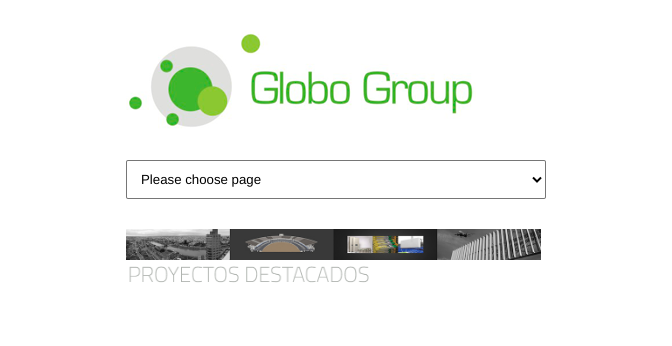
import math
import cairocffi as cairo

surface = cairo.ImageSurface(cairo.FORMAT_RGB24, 672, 346)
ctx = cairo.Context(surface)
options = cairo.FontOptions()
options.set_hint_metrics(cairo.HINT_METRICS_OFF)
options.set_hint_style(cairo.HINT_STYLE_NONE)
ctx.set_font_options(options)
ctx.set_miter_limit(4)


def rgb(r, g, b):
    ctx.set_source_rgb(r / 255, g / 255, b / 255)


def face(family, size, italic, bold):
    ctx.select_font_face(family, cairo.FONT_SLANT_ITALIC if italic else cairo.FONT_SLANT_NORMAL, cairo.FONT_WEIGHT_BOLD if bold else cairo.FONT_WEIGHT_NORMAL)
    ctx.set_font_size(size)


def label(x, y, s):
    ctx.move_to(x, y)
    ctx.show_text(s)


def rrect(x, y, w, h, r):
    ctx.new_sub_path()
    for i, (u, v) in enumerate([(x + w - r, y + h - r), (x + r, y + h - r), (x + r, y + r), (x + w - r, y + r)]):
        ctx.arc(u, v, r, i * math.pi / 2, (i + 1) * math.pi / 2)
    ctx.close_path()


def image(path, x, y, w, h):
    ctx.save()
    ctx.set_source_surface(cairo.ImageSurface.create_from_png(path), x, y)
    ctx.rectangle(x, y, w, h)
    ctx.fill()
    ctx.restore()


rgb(255, 255, 255)
ctx.paint()
image('image0.png', 126, 30, 350, 99)
rrect(126.5, 160.5, 419, 38, 1.5)
rgb(118, 118, 118)
ctx.set_line_width(1)
ctx.stroke()
ctx.new_path()
ctx.move_to(533, 177.5)
ctx.line_to(537, 181.5)
ctx.line_to(541, 177.5)
rgb(0, 0, 0)
ctx.set_line_width(2)
ctx.stroke()
face('Liberation Sans', 13.25, 0, 0)
label(141, 184, 'Please choose page')
image('image1.png', 126, 229, 415, 31)
image('image2.png', 129, 266, 240, 17)
surface.write_to_png('render.png')
